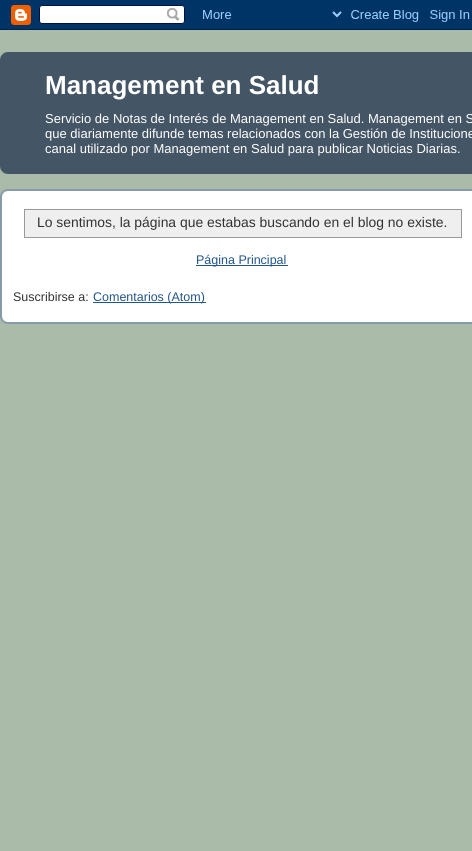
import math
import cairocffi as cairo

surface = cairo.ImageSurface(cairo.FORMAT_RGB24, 472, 851)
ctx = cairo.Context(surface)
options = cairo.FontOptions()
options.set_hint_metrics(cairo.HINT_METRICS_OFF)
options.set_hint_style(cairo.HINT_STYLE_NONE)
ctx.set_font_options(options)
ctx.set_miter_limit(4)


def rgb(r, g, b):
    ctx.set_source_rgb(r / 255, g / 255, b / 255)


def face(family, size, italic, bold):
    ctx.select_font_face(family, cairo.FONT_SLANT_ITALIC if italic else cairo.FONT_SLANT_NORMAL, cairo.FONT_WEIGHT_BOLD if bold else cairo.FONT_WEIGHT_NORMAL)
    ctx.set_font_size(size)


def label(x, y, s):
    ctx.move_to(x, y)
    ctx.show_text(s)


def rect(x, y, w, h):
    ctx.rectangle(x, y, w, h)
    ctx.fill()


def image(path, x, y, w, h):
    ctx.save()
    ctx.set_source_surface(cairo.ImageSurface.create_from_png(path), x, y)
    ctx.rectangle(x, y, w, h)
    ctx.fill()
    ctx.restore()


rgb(170, 187, 170)
ctx.paint()
image('image0.png', 0, 0, 472, 30)
rgb(68, 85, 102)
rect(0, 52, 472, 122)
image('image1.png', 0, 52, 8, 8)
image('image2.png', 0, 166, 8, 8)
face('Liberation Sans', 26, 0, 1)
rgb(255, 255, 255)
label(45, 94, 'Management en Salud')
face('Liberation Sans', 13, 0, 0)
label(45, 123, 'Servicio de Notas de Interés de Management en Salud. Management en S')
label(45, 138, 'que diariamente difunde temas relacionados con la Gestión de Institucione')
label(45, 153, 'canal utilizado por Management en Salud para publicar Noticias Diarias.')
rect(2, 191, 470, 131)
image('image3.png', 0, 274, 472, 50)
image('image4.png', 0, 189, 472, 50)
rgb(136, 153, 170)
rect(0, 239, 2, 35)
ctx.rectangle(24.5, 209.5, 437, 28)
rgb(153, 153, 153)
ctx.set_line_width(1)
ctx.stroke()
rgb(239, 239, 239)
rect(25, 210, 436, 27)
face('Liberation Sans', 13.9, 0, 0)
rgb(51, 51, 51)
label(37, 227, 'Lo sentimos, la página que estabas buscando en el blog no existe.')
rgb(34, 85, 136)
rect(196, 265, 92, 1)
face('Liberation Sans', 12.5, 0, 0)
label(196, 264, 'Página Principal')
rgb(51, 51, 51)
label(13, 301, 'Suscribirse a:')
rgb(34, 85, 136)
rect(93, 302, 113, 1)
label(93, 301, 'Comentarios (Atom)')
surface.write_to_png('render.png')
